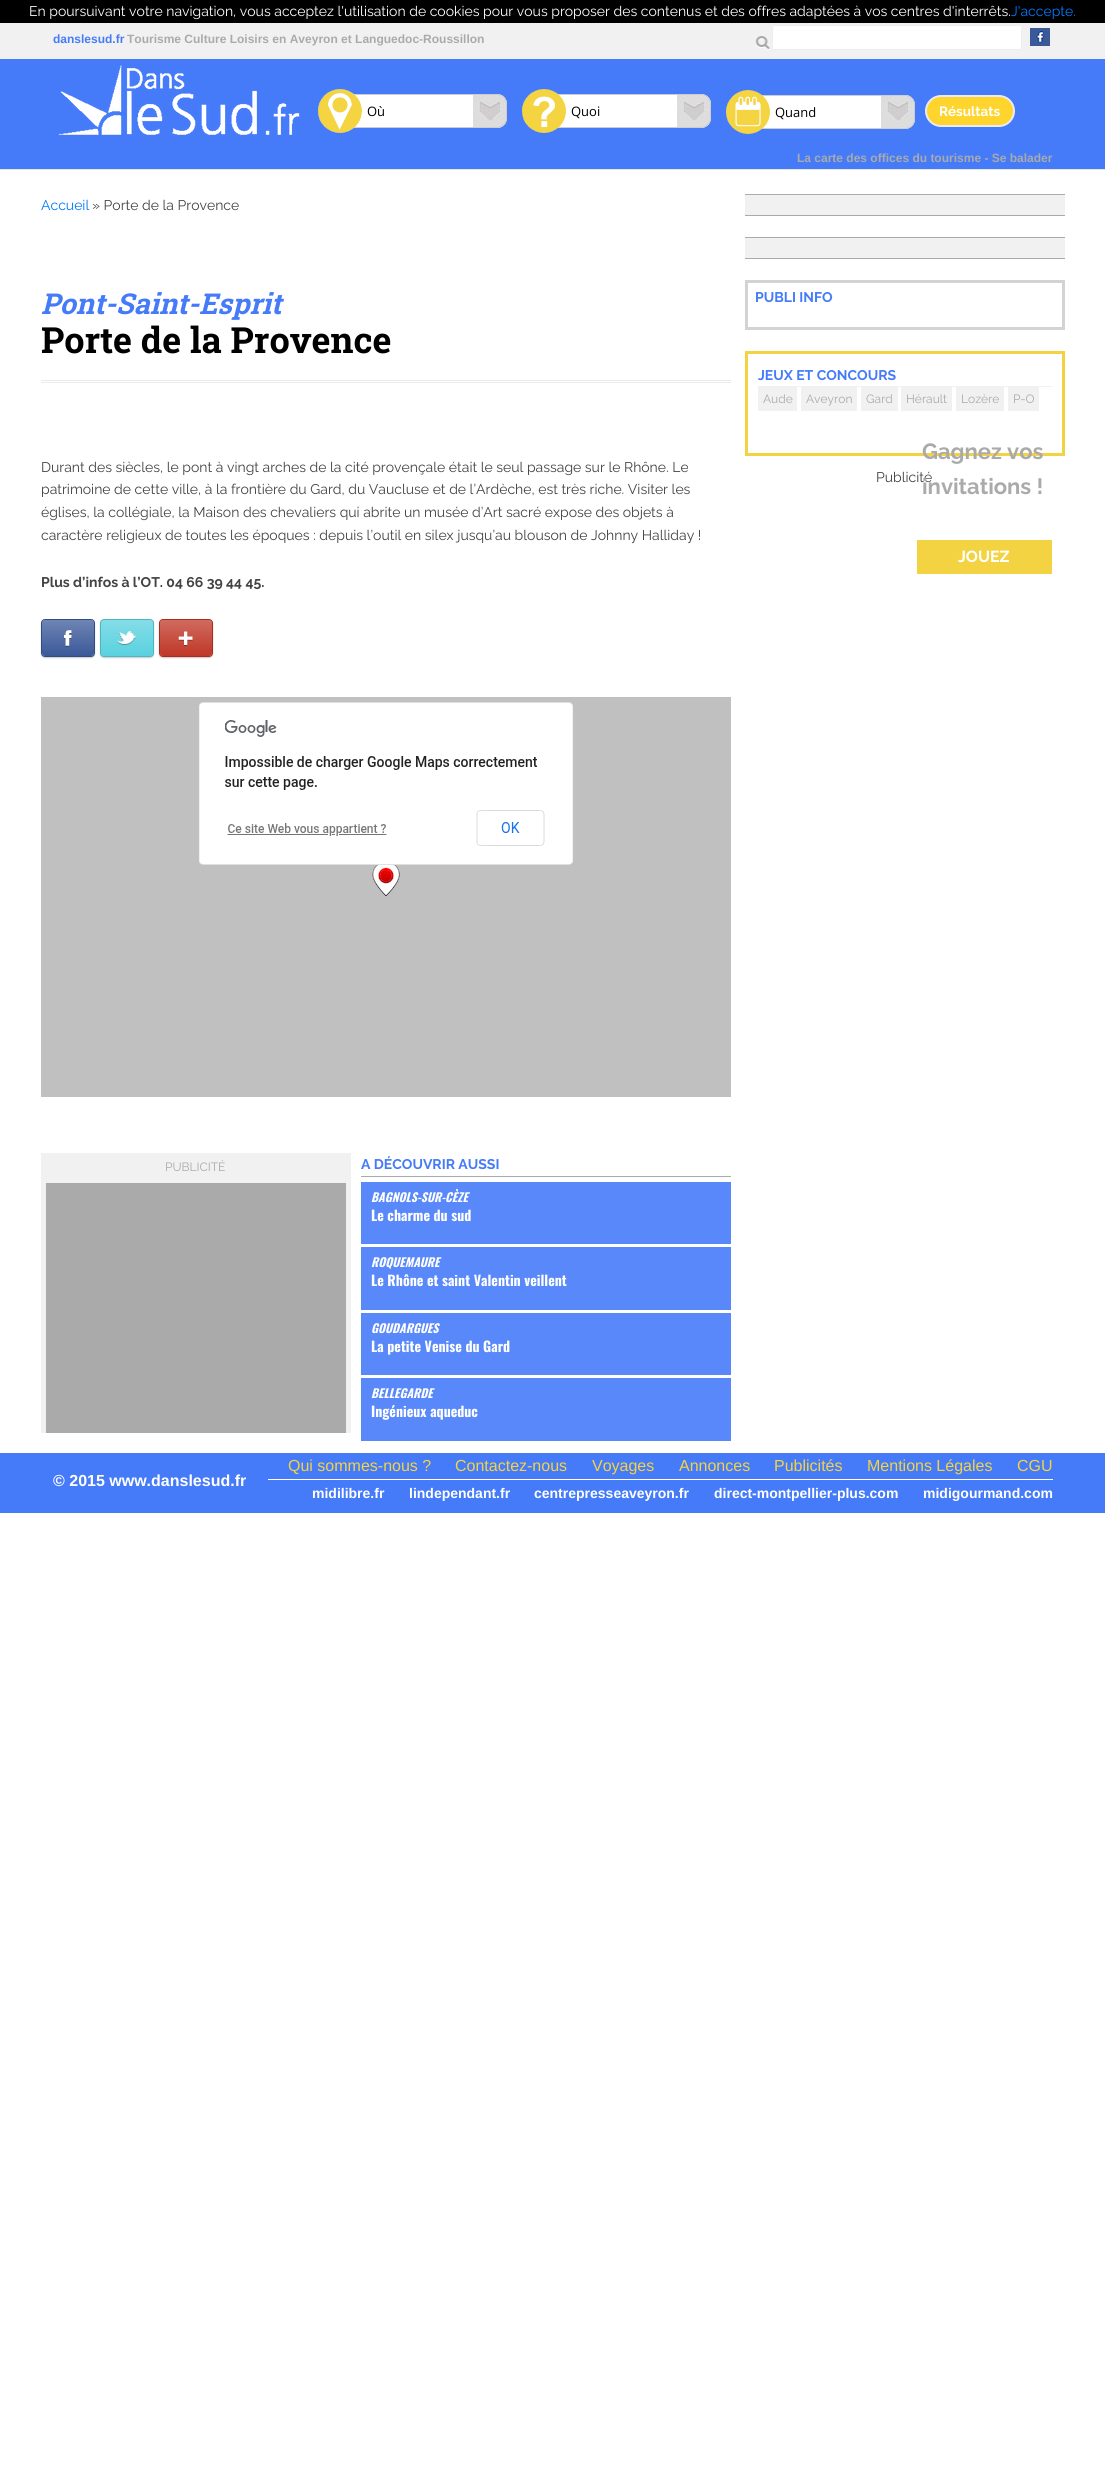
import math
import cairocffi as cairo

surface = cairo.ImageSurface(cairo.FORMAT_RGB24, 1105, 2479)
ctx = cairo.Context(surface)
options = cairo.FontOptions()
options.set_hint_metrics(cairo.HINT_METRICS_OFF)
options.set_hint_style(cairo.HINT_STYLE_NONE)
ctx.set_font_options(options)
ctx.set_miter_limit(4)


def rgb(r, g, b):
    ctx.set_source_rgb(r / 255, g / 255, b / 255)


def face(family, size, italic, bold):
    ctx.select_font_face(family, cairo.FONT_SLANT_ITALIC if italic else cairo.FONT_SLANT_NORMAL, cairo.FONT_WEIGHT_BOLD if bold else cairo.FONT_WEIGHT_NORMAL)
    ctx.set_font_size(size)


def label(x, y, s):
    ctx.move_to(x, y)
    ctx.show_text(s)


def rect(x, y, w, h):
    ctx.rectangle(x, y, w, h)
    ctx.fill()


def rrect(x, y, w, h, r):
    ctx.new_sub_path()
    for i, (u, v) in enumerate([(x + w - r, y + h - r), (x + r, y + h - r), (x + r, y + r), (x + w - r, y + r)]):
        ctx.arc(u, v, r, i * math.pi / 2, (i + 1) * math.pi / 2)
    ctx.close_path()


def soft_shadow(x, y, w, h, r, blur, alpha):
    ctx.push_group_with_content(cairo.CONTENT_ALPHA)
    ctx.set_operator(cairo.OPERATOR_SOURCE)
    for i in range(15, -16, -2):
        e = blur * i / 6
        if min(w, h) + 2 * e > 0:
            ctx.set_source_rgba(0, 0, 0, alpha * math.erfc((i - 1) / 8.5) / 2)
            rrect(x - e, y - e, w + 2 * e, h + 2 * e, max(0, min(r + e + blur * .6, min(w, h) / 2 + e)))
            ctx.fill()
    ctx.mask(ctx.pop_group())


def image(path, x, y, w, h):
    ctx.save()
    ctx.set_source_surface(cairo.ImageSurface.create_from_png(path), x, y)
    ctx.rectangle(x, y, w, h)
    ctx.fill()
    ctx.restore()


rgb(255, 255, 255)
ctx.paint()
rgb(0, 0, 0)
rect(0, 0, 1105, 23)
face('Raleway', 14, 0, 0)
rgb(255, 255, 255)
label(29, 16, 'En poursuivant votre navigation, vous acceptez l\'utilisation de cookies pour vous proposer des contenus et des offres adaptées à vos centres d\'interrêts.')
rgb(0, 121, 251)
label(1011, 16, 'J\'accepte.')
rgb(241, 241, 241)
rect(0, 23, 1105, 36)
rgb(228, 228, 228)
rect(0, 169, 1105, 1)
face('Liberation Sans', 12, 0, 1)
rgb(69, 123, 249)
label(53, 43, 'danslesud.fr')
rgb(170, 170, 170)
label(127, 43, 'Tourisme Culture Loisirs en Aveyron et Languedoc-Roussillon')
image('image0.png', 755, 36, 15, 14)
rgb(255, 255, 255)
rrect(772.5, 25.5, 249, 24, 1.5)
ctx.fill_preserve()
rgb(238, 238, 238)
ctx.set_line_width(1)
ctx.stroke()
image('image1.png', 1030, 28, 20, 18)
rgb(69, 123, 249)
rect(0, 59, 1105, 110)
image('image2.png', 58, 65, 242, 71)
rgb(255, 255, 255)
rrect(347, 94, 160, 34, 10)
ctx.fill()
image('image4.png', 473, 95, 33, 33)
rrect(347.5, 94.5, 159, 33, 9.5)
rgb(204, 204, 204)
ctx.stroke()
image('image3.png', 318, 89, 44, 44)
face('Open Sans', 13, 0, 0)
rgb(0, 0, 0)
label(367, 116, 'Où')
rgb(255, 255, 255)
rrect(551, 94, 160, 34, 10)
ctx.fill()
image('image4.png', 677, 95, 33, 33)
rrect(551.5, 94.5, 159, 33, 9.5)
rgb(204, 204, 204)
ctx.stroke()
image('image5.png', 522, 89, 44, 44)
rgb(0, 0, 0)
label(571, 116, 'Quoi')
rgb(255, 255, 255)
rrect(755, 95, 160, 34, 10)
ctx.fill()
image('image7.png', 881, 95, 33, 33)
rrect(755.5, 95.5, 159, 33, 9.5)
rgb(204, 204, 204)
ctx.stroke()
image('image6.png', 726, 90, 44, 44)
rgb(0, 0, 0)
label(775, 117, 'Quand')
rgb(255, 212, 44)
rrect(926, 96, 88, 30, 15)
ctx.fill_preserve()
rgb(235, 235, 235)
ctx.set_line_width(2)
ctx.stroke()
face('Raleway', 13.5, 0, 1)
rgb(255, 255, 255)
label(939, 116, 'Résultats')
face('Liberation Sans', 12, 0, 1)
rgb(170, 170, 170)
label(797, 162, 'La carte des offices du tourisme - Se balader')
face('Raleway', 14, 0, 0)
rgb(0, 121, 251)
label(41, 210, 'Accueil')
rgb(65, 67, 69)
label(92, 210, '» Porte de la Provence')
face('Roboto Slab', 28.75, 1, 1)
rgb(69, 123, 249)
label(41, 314, 'Pont-Saint-Esprit')
face('Roboto Slab', 36, 0, 1)
rgb(0, 0, 0)
label(41, 353, 'Porte de la Provence')
rgb(235, 235, 235)
rect(41, 380, 690, 1)
rect(41, 382, 690, 1)
face('Raleway', 14, 0, 0)
rgb(65, 67, 69)
label(41, 472, 'Durant des siècles, le pont à vingt arches de la cité provençale était le seul passage sur le Rhône. Le')
label(41, 494, 'patrimoine de cette ville, à la frontière du Gard, du Vaucluse et de l’Ardèche, est très riche. Visiter les')
label(41, 517, 'églises, la collégiale, la Maison des chevaliers qui abrite un musée d’Art sacré expose des objets à')
label(41, 540, 'caractère religieux de toutes les époques : depuis l’outil en silex jusqu’au blouson de Johnny Halliday !')
face('Raleway', 14, 0, 1)
label(41, 587, 'Plus d’infos à l’OT. 04 66 39 44 45.')
rgb(0, 0, 0)
soft_shadow(41, 620, 54, 38, 4, 0.5, 0.19)
rgb(59, 89, 153)
rrect(42, 620, 52, 36, 3)
ctx.fill()
gradient = cairo.LinearGradient(68, 656, 68, 620)
gradient.add_color_stop_rgba(0, 1, 1, 1, 0)
gradient.add_color_stop_rgba(1, 1, 1, 1, 0.26)
ctx.set_source(gradient)
rrect(42, 620, 52, 36, 3)
ctx.fill()
rrect(41.5, 619.5, 53, 37, 3.5)
rgb(49, 75, 131)
ctx.set_line_width(1)
ctx.stroke()
image('image8.png', 64, 630, 8, 17)
rgb(0, 0, 0)
soft_shadow(100, 620, 54, 38, 4, 0.5, 0.19)
rgb(89, 209, 223)
rrect(101, 620, 52, 36, 3)
ctx.fill()
gradient = cairo.LinearGradient(127, 656, 127, 620)
gradient.add_color_stop_rgba(0, 1, 1, 1, 0)
gradient.add_color_stop_rgba(1, 1, 1, 1, 0.26)
ctx.set_source(gradient)
rrect(101, 620, 52, 36, 3)
ctx.fill()
rrect(100.5, 619.5, 53, 37, 3.5)
rgb(79, 181, 193)
ctx.stroke()
image('image9.png', 117, 631, 19, 14)
rgb(0, 0, 0)
soft_shadow(159, 620, 54, 38, 4, 0.5, 0.19)
rgb(191, 55, 39)
rrect(160, 620, 52, 36, 3)
ctx.fill()
gradient = cairo.LinearGradient(186, 656, 186, 620)
gradient.add_color_stop_rgba(0, 1, 1, 1, 0)
gradient.add_color_stop_rgba(1, 1, 1, 1, 0.26)
ctx.set_source(gradient)
rrect(160, 620, 52, 36, 3)
ctx.fill()
rrect(159.5, 619.5, 53, 37, 3.5)
rgb(171, 43, 29)
ctx.stroke()
image('image10.png', 178, 631, 15, 15)
image('image11.png', 41, 697, 690, 400)
rgb(241, 241, 241)
rect(41, 1153, 310, 280)
face('Raleway', 12, 0, 0)
rgb(170, 170, 170)
label(165, 1171, 'PUBLICITÉ')
rect(46, 1183, 300, 250)
rect(361, 1176, 370, 1)
face('Raleway', 14, 0, 1)
rgb(69, 123, 249)
label(361, 1169, 'A DÉCOUVRIR AUSSI')
rgb(88, 136, 250)
rect(361, 1182, 370, 62)
face('Oswald', 12, 1, 1)
rgb(255, 255, 255)
label(371, 1202, 'BAGNOLS-SUR-CÈZE')
face('Oswald', 14, 0, 1)
label(371, 1221, 'Le charme du sud')
rgb(88, 136, 250)
rect(361, 1247, 370, 63)
face('Oswald', 12, 1, 1)
rgb(255, 255, 255)
label(371, 1267, 'ROQUEMAURE')
face('Oswald', 14, 0, 1)
label(371, 1286, 'Le Rhône et saint Valentin veillent')
rgb(88, 136, 250)
rect(361, 1313, 370, 62)
face('Oswald', 12, 1, 1)
rgb(255, 255, 255)
label(371, 1333, 'GOUDARGUES')
face('Oswald', 14, 0, 1)
label(371, 1352, 'La petite Venise du Gard')
rgb(88, 136, 250)
rect(361, 1378, 370, 63)
face('Oswald', 12, 1, 1)
rgb(255, 255, 255)
label(371, 1398, 'BELLEGARDE')
face('Oswald', 14, 0, 1)
label(371, 1417, 'Ingénieux aqueduc')
rgb(241, 241, 241)
rect(745, 195, 320, 20)
rgb(170, 170, 170)
rect(745, 194, 320, 1)
rect(745, 215, 320, 1)
rgb(241, 241, 241)
rect(745, 238, 320, 20)
rgb(170, 170, 170)
rect(745, 237, 320, 1)
rect(745, 258, 320, 1)
ctx.rectangle(746.5, 281.5, 317, 47)
rgb(211, 211, 211)
ctx.set_line_width(3)
ctx.stroke()
face('Raleway', 14, 0, 1)
rgb(69, 123, 249)
label(755, 302, 'PUBLI INFO')
ctx.rectangle(746.5, 352.5, 317, 102)
rgb(243, 211, 66)
ctx.stroke()
rgb(241, 241, 241)
rect(797, 386, 255, 1)
rgb(69, 123, 249)
label(758, 380, 'JEUX ET CONCOURS')
rgb(241, 241, 241)
rect(758, 386, 39, 25)
face('Raleway', 12, 0, 0)
rgb(170, 170, 170)
label(763, 403, 'Aude')
rgb(241, 241, 241)
rect(801, 387, 56, 24)
rgb(170, 170, 170)
label(806, 403, 'Aveyron')
rgb(241, 241, 241)
rect(861, 387, 37, 24)
rgb(170, 170, 170)
label(866, 403, 'Gard')
rgb(241, 241, 241)
rect(901, 387, 51, 24)
rgb(170, 170, 170)
label(906, 403, 'Hérault')
rgb(241, 241, 241)
rect(956, 387, 48, 24)
rgb(170, 170, 170)
label(961, 403, 'Lozère')
rgb(241, 241, 241)
rect(1008, 387, 31, 24)
rgb(170, 170, 170)
label(1013, 403, 'P-O')
face('Raleway', 22, 0, 1)
label(922, 459, 'Gagnez vos')
face('Raleway', 14, 0, 0)
rgb(65, 67, 69)
label(876, 482, 'Publicité')
face('Raleway', 22, 0, 1)
rgb(170, 170, 170)
label(922, 494, 'invitations !')
rgb(243, 211, 66)
rect(917, 540, 135, 34)
face('Raleway', 16, 0, 1)
rgb(255, 255, 255)
label(958, 562, 'JOUEZ')
rgb(69, 123, 249)
rect(0, 1453, 1105, 60)
rgb(255, 255, 255)
rect(268, 1479, 785, 1)
face('Liberation Sans', 16, 0, 0)
rgb(243, 211, 66)
label(288, 1471, 'Qui sommes-nous ?')
label(455, 1471, 'Contactez-nous')
label(592, 1471, 'Voyages')
label(679, 1471, 'Annonces')
label(774, 1471, 'Publicités')
label(867, 1471, 'Mentions Légales')
label(1017, 1471, 'CGU')
face('Liberation Sans', 16, 0, 1)
rgb(255, 255, 255)
label(53, 1486, '© 2015 www.danslesud.fr')
face('Liberation Sans', 14, 0, 1)
label(312, 1498, 'midilibre.fr')
label(409, 1498, 'lindependant.fr')
label(534, 1498, 'centrepresseaveyron.fr')
label(714, 1498, 'direct-montpellier-plus.com')
label(923, 1498, 'midigourmand.com')
surface.write_to_png('render.png')
